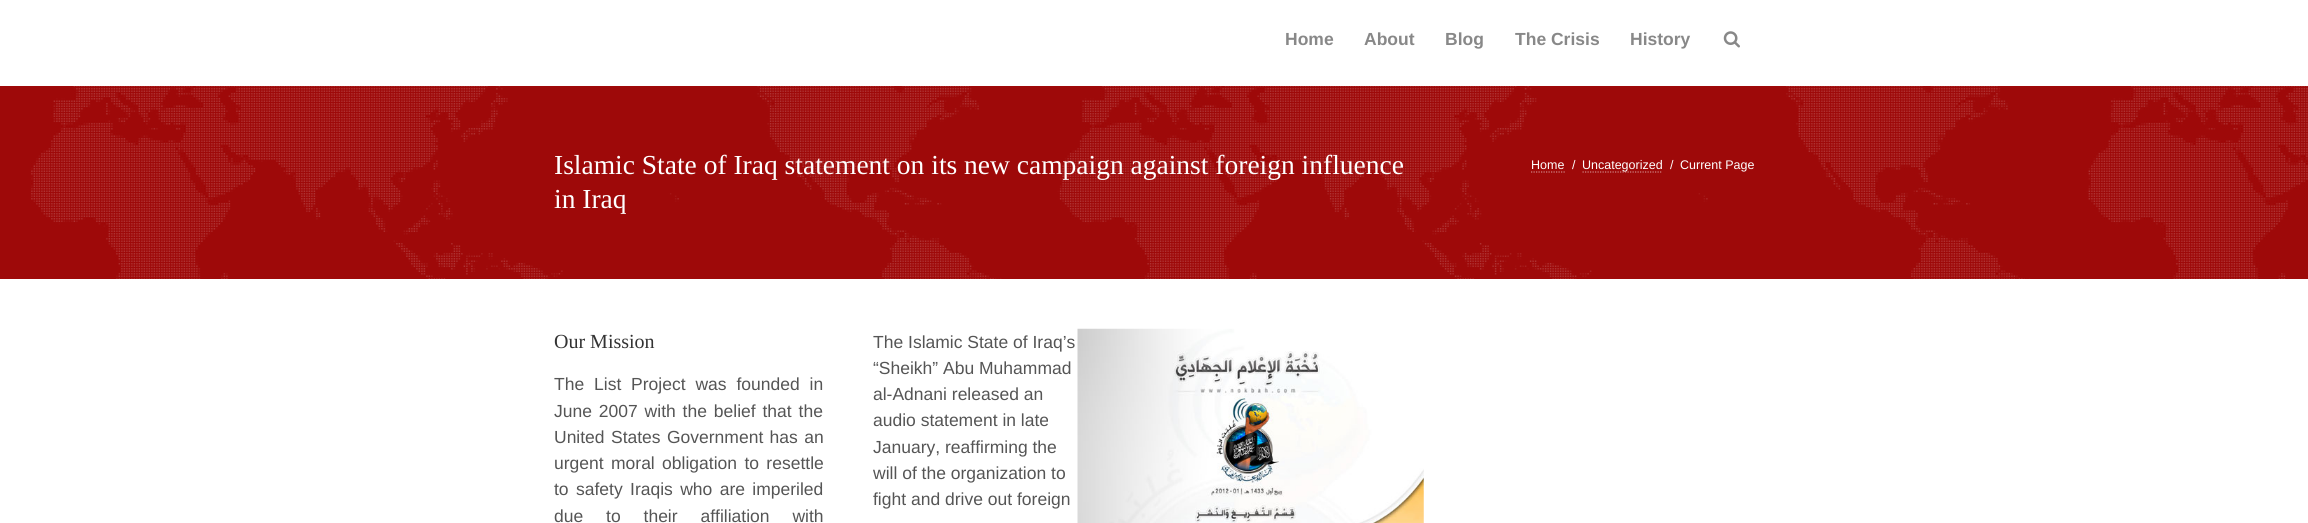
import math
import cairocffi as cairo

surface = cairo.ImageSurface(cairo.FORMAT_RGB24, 2308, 523)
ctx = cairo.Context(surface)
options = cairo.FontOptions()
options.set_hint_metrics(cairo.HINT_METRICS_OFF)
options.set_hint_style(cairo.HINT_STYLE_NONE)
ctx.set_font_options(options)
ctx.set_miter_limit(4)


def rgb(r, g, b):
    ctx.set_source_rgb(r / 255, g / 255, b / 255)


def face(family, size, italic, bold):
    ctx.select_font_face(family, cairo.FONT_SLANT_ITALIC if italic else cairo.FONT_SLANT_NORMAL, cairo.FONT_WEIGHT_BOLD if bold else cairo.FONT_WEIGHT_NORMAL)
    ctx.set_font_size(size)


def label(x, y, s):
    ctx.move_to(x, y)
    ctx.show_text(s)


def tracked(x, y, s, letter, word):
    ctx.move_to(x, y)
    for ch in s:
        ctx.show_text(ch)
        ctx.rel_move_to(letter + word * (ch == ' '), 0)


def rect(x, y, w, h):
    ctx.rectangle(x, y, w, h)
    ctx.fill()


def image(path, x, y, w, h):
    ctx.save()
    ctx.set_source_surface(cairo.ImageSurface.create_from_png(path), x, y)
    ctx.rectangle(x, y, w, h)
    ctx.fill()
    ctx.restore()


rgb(255, 255, 255)
ctx.paint()
face('Liberation Sans', 17.5, 0, 1)
rgb(136, 136, 136)
label(1285, 45, 'Home')
label(1364, 45, 'About')
label(1445, 45, 'Blog')
label(1515, 45, 'The Crisis')
label(1630, 45, 'History')
image('image0.png', 1723, 31, 17, 17)
rgb(158, 9, 9)
rect(0, 86, 2308, 193)
image('image1.png', 31, 86, 2277, 193)
face('Liberation Serif', 27.5, 0, 0)
rgb(255, 255, 255)
label(554, 174, 'Islamic State of Iraq statement on its new campaign against foreign influence')
face('Liberation Sans', 12.5, 0, 0)
label(1531, 169, 'Home')
ctx.new_path()
ctx.move_to(1531, 172)
ctx.line_to(1565, 172)
rgb(207, 132, 132)
ctx.set_line_width(1.2)
ctx.set_dash([1.25, 1.25])
ctx.stroke()
rgb(255, 255, 255)
label(1572, 169, '/')
ctx.new_path()
ctx.move_to(1582.5, 172)
ctx.line_to(1662.5, 172)
rgb(207, 132, 132)
ctx.stroke()
rgb(255, 255, 255)
label(1582, 169, 'Uncategorized')
label(1670, 169, '/')
label(1680, 169, 'Current Page')
face('Liberation Serif', 27.5, 0, 0)
label(554, 208, 'in Iraq')
face('Liberation Serif', 20, 0, 0)
rgb(51, 51, 51)
label(554, 348, 'Our Mission')
face('Liberation Sans', 17.5, 0, 0)
rgb(85, 85, 85)
tracked(554, 390, 'The List Project was founded in', 0, 5)
tracked(554, 417, 'June 2007 with the belief that the', 0, 2)
tracked(554, 443, 'United States Government has an', 0, 1.5)
tracked(554, 469, 'urgent moral obligation to resettle', 0, 2.5)
tracked(554, 495, 'to safety Iraqis who are imperiled', 0, 2.5)
tracked(554, 522, 'due to their affiliation with', 0, 18)
label(873, 348, 'The Islamic State of Iraq’s')
label(873, 374, '“Sheikh” Abu Muhammad')
label(873, 400, 'al-Adnani released an')
label(873, 426, 'audio statement in late')
label(873, 453, 'January, reaffirming the')
label(873, 479, 'will of the organization to')
label(873, 505, 'fight and drive out foreign')
image('image2.png', 1077, 328, 347, 195)
surface.write_to_png('render.png')
